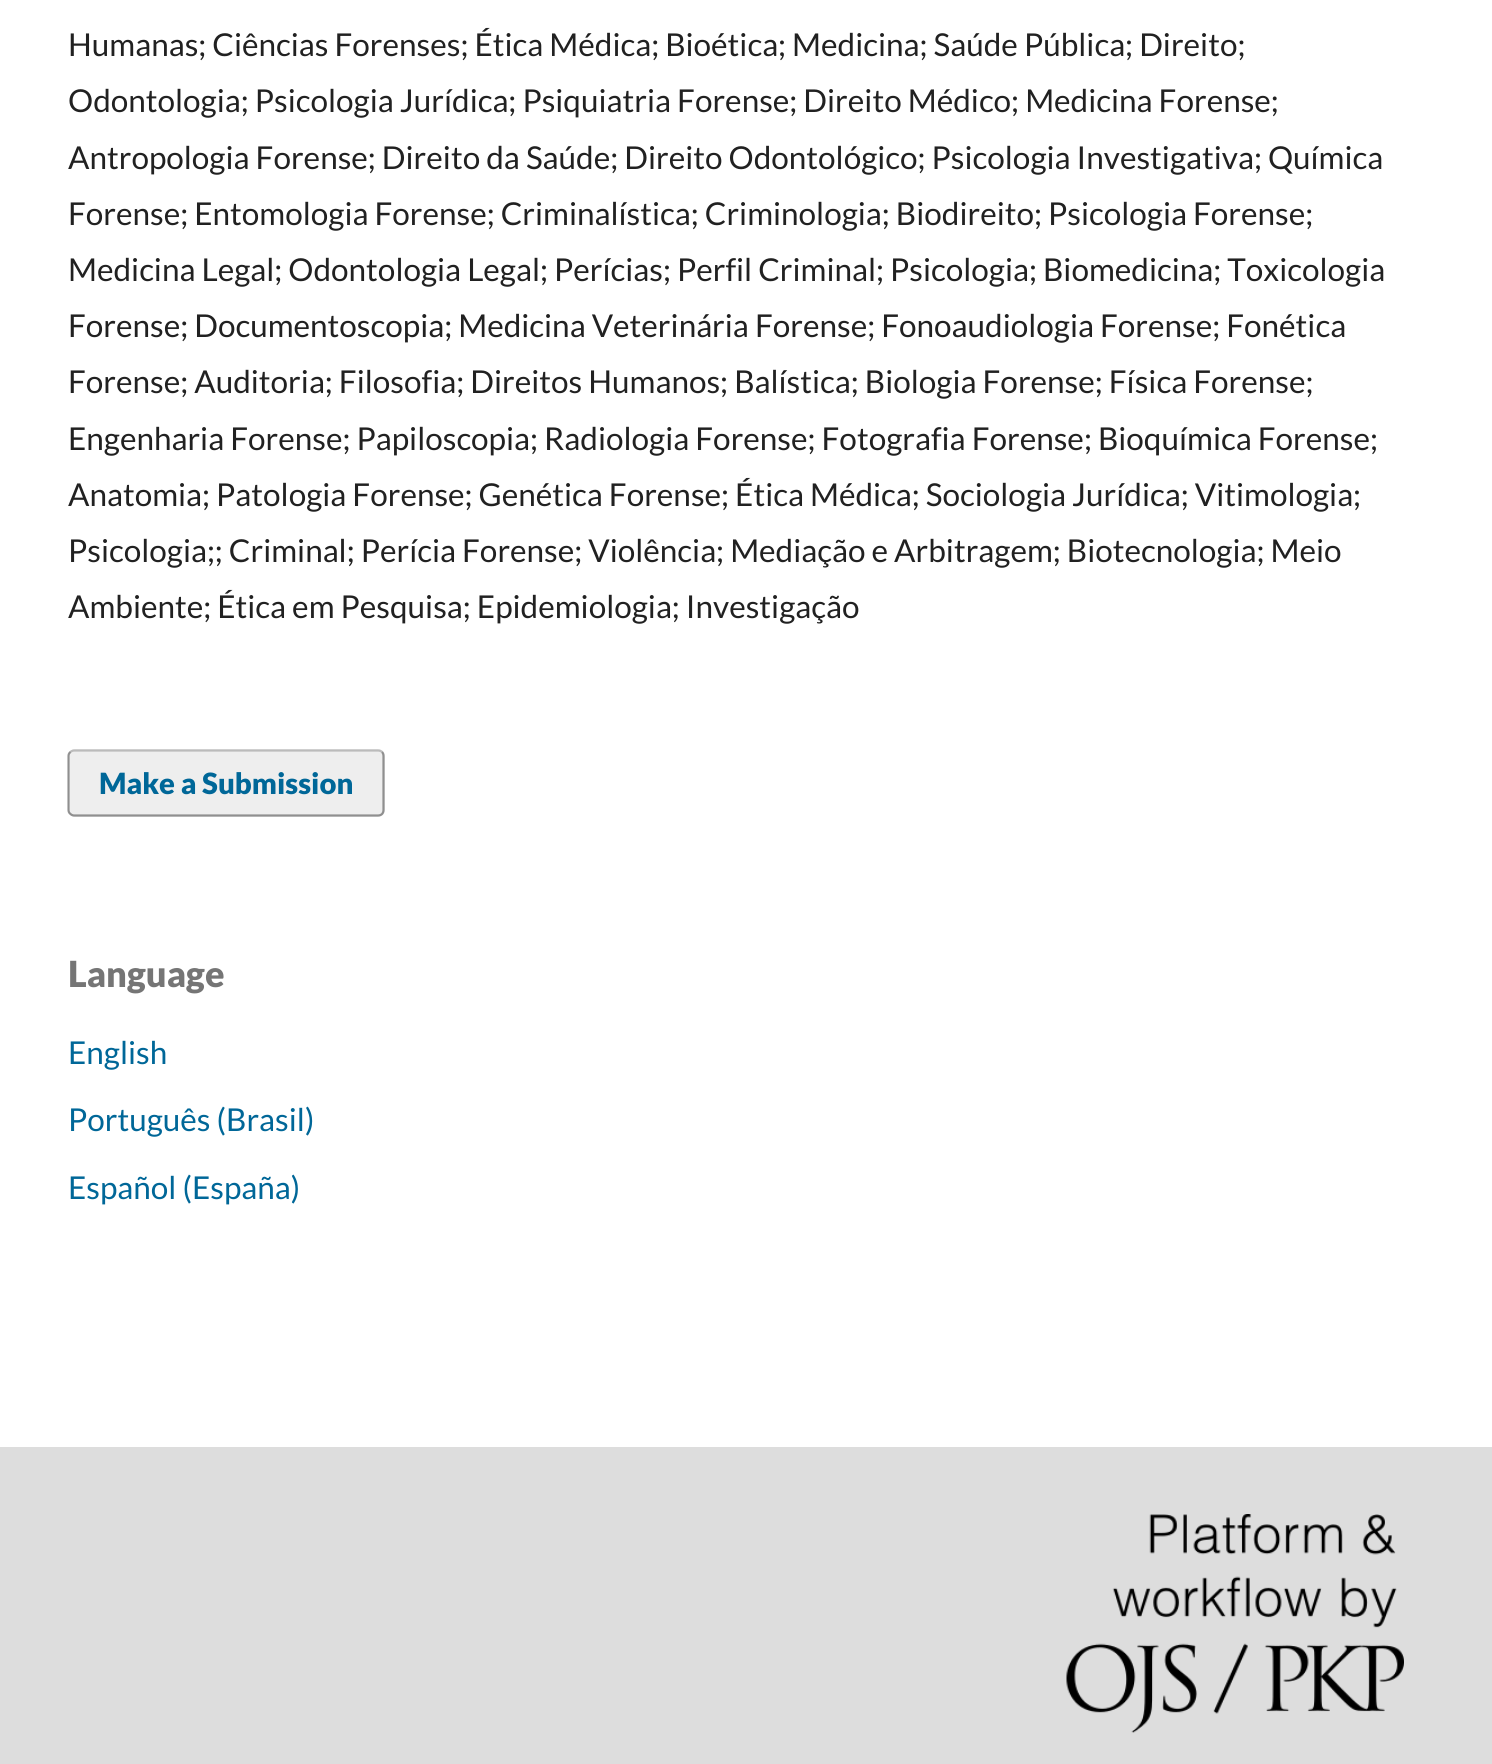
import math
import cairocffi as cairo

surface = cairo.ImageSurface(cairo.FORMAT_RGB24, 1492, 1764)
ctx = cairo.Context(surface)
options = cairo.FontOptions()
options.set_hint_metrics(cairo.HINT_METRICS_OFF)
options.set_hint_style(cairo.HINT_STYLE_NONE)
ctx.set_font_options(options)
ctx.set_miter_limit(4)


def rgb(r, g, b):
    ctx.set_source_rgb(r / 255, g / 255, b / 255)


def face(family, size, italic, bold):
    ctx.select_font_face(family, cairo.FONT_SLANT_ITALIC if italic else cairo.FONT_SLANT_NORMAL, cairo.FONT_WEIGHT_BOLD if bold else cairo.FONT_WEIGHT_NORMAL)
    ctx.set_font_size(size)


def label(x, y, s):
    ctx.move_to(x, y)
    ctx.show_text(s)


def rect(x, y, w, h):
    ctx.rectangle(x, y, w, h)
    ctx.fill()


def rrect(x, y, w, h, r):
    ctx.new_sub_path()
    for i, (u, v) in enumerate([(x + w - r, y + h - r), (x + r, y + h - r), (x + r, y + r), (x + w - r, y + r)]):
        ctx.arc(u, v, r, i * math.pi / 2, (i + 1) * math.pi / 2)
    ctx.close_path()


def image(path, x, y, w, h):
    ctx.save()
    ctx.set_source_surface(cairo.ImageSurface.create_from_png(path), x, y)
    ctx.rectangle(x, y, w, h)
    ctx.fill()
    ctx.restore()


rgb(255, 255, 255)
ctx.paint()
face('Lato', 31.5, 0, 0)
rgb(33, 33, 33)
label(68, 56, 'Humanas; Ciências Forenses; Ética Médica; Bioética; Medicina; Saúde Pública; Direito;')
label(68, 112, 'Odontologia; Psicologia Jurídica; Psiquiatria Forense; Direito Médico; Medicina Forense;')
label(68, 169, 'Antropologia Forense; Direito da Saúde; Direito Odontológico; Psicologia Investigativa; Química')
label(68, 225, 'Forense; Entomologia Forense; Criminalística; Criminologia; Biodireito; Psicologia Forense;')
label(68, 281, 'Medicina Legal; Odontologia Legal; Perícias; Perfil Criminal; Psicologia; Biomedicina; Toxicologia')
label(68, 337, 'Forense; Documentoscopia; Medicina Veterinária Forense; Fonoaudiologia Forense; Fonética')
label(68, 393, 'Forense; Auditoria; Filosofia; Direitos Humanos; Balística; Biologia Forense; Física Forense;')
label(68, 450, 'Engenharia Forense; Papiloscopia; Radiologia Forense; Fotografia Forense; Bioquímica Forense;')
label(68, 506, 'Anatomia; Patologia Forense; Genética Forense; Ética Médica; Sociologia Jurídica; Vitimologia;')
label(68, 562, 'Psicologia;; Criminal; Perícia Forense; Violência; Mediação e Arbitragem; Biotecnologia; Meio')
label(68, 618, 'Ambiente; Ética em Pesquisa; Epidemiologia; Investigação')
rgb(238, 238, 238)
rrect(68, 749, 317, 68, 7)
ctx.fill()
ctx.new_path()
ctx.move_to(70.5, 752)
ctx.curve_to(71.5, 751, 73, 750.5, 74, 750.5)
ctx.line_to(378, 750.5)
ctx.curve_to(379.5, 750.5, 381, 751, 382, 752)
rgb(187, 187, 187)
ctx.set_line_width(2.2)
ctx.stroke()
ctx.new_path()
ctx.move_to(382, 752)
ctx.curve_to(383, 753, 383.5, 754.5, 383.5, 756)
ctx.line_to(383.5, 810)
ctx.curve_to(383.5, 811.5, 383, 813, 382, 814)
ctx.curve_to(381, 815, 379.5, 815.5, 378, 815.5)
ctx.line_to(74, 815.5)
ctx.curve_to(73, 815.5, 71.5, 815, 70.5, 814)
ctx.curve_to(69, 813, 68.5, 811.5, 68.5, 810)
ctx.line_to(68.5, 756)
ctx.curve_to(68.5, 754.5, 69, 753, 70.5, 752)
ctx.set_source_rgba(0, 0, 0, 0.4)
ctx.stroke()
face('Lato Black', 29.25, 0, 0)
rgb(0, 103, 152)
label(99, 794, 'Make a Submission')
face('Lato Black', 36, 0, 0)
rgb(117, 117, 117)
label(68, 987, 'Language')
face('Lato', 31.5, 0, 0)
rgb(0, 103, 152)
label(68, 1064, 'English')
label(68, 1131, 'Português (Brasil)')
label(68, 1199, 'Español (España)')
rgb(221, 221, 221)
rect(0, 1447, 1492, 317)
image('image0.png', 1066, 1514, 338, 219)
surface.write_to_png('render.png')
